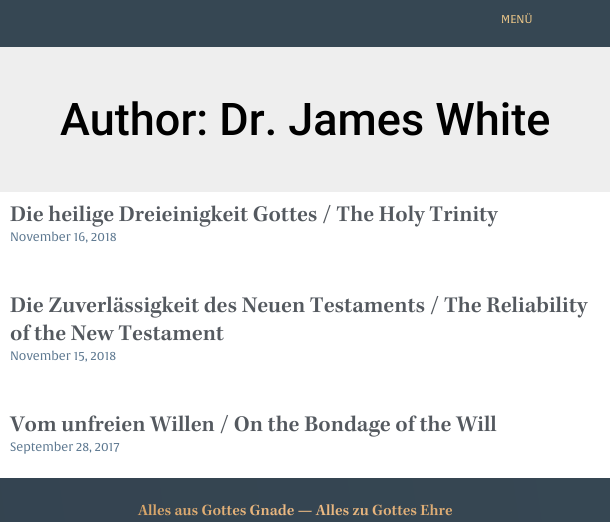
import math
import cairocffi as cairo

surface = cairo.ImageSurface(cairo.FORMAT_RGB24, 610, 522)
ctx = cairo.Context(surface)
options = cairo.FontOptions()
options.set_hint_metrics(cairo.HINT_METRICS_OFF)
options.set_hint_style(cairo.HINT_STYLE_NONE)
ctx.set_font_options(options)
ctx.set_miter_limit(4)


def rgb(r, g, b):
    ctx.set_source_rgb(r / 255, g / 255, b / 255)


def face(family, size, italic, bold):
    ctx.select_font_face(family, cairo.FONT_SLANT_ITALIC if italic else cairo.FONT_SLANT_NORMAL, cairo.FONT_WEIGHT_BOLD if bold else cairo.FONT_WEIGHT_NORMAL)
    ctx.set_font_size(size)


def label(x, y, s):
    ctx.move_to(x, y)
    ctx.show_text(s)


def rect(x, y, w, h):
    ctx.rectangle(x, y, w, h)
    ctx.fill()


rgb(255, 255, 255)
ctx.paint()
rgb(54, 71, 83)
rect(0, 0, 610, 47)
face('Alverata', 11, 0, 0)
rgb(239, 201, 137)
label(501, 23, 'MENÜ')
rgb(238, 238, 238)
rect(0, 47, 610, 145)
face('Roboto Medium', 45, 0, 0)
rgb(0, 0, 0)
label(60, 135, 'Author: Dr. James White')
face('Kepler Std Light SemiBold', 23.05, 0, 0)
rgb(84, 89, 95)
label(10, 221, 'Die heilige Dreieinigkeit Gottes / The Holy Trinity')
face('Alverata', 12, 0, 0)
rgb(93, 120, 144)
label(10, 241, 'November 16, 2018')
face('Kepler Std Light SemiBold', 23.05, 0, 0)
rgb(84, 89, 95)
label(10, 312, 'Die Zuverlässigkeit des Neuen Testaments / The Reliability')
label(10, 340, 'of the New Testament')
face('Alverata', 12, 0, 0)
rgb(93, 120, 144)
label(10, 360, 'November 15, 2018')
face('Kepler Std Light SemiBold', 23.05, 0, 0)
rgb(84, 89, 95)
label(10, 431, 'Vom unfreien Willen / On the Bondage of the Will')
face('Alverata', 12, 0, 0)
rgb(93, 120, 144)
label(10, 451, 'September 28, 2017')
gradient = cairo.LinearGradient(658, 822, -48, 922)
gradient.add_color_stop_rgba(0, 0.212, 0.278, 0.325, 1)
gradient.add_color_stop_rgba(1, 0.204, 0.263, 0.314, 1)
ctx.set_source(gradient)
rect(0, 478, 610, 44)
face('Kepler Std Light SemiBold', 16, 0, 0)
gradient = cairo.LinearGradient(444, 377, 166, 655)
gradient.add_color_stop_rgba(0, 0.8, 0.616, 0.392, 1)
gradient.add_color_stop_rgba(0.5, 0.933, 0.733, 0.518, 1)
gradient.add_color_stop_rgba(1, 0.769, 0.576, 0.329, 1)
ctx.set_source(gradient)
label(138, 515, 'Alles aus Gottes Gnade — Alles zu Gottes Ehre')
surface.write_to_png('render.png')
